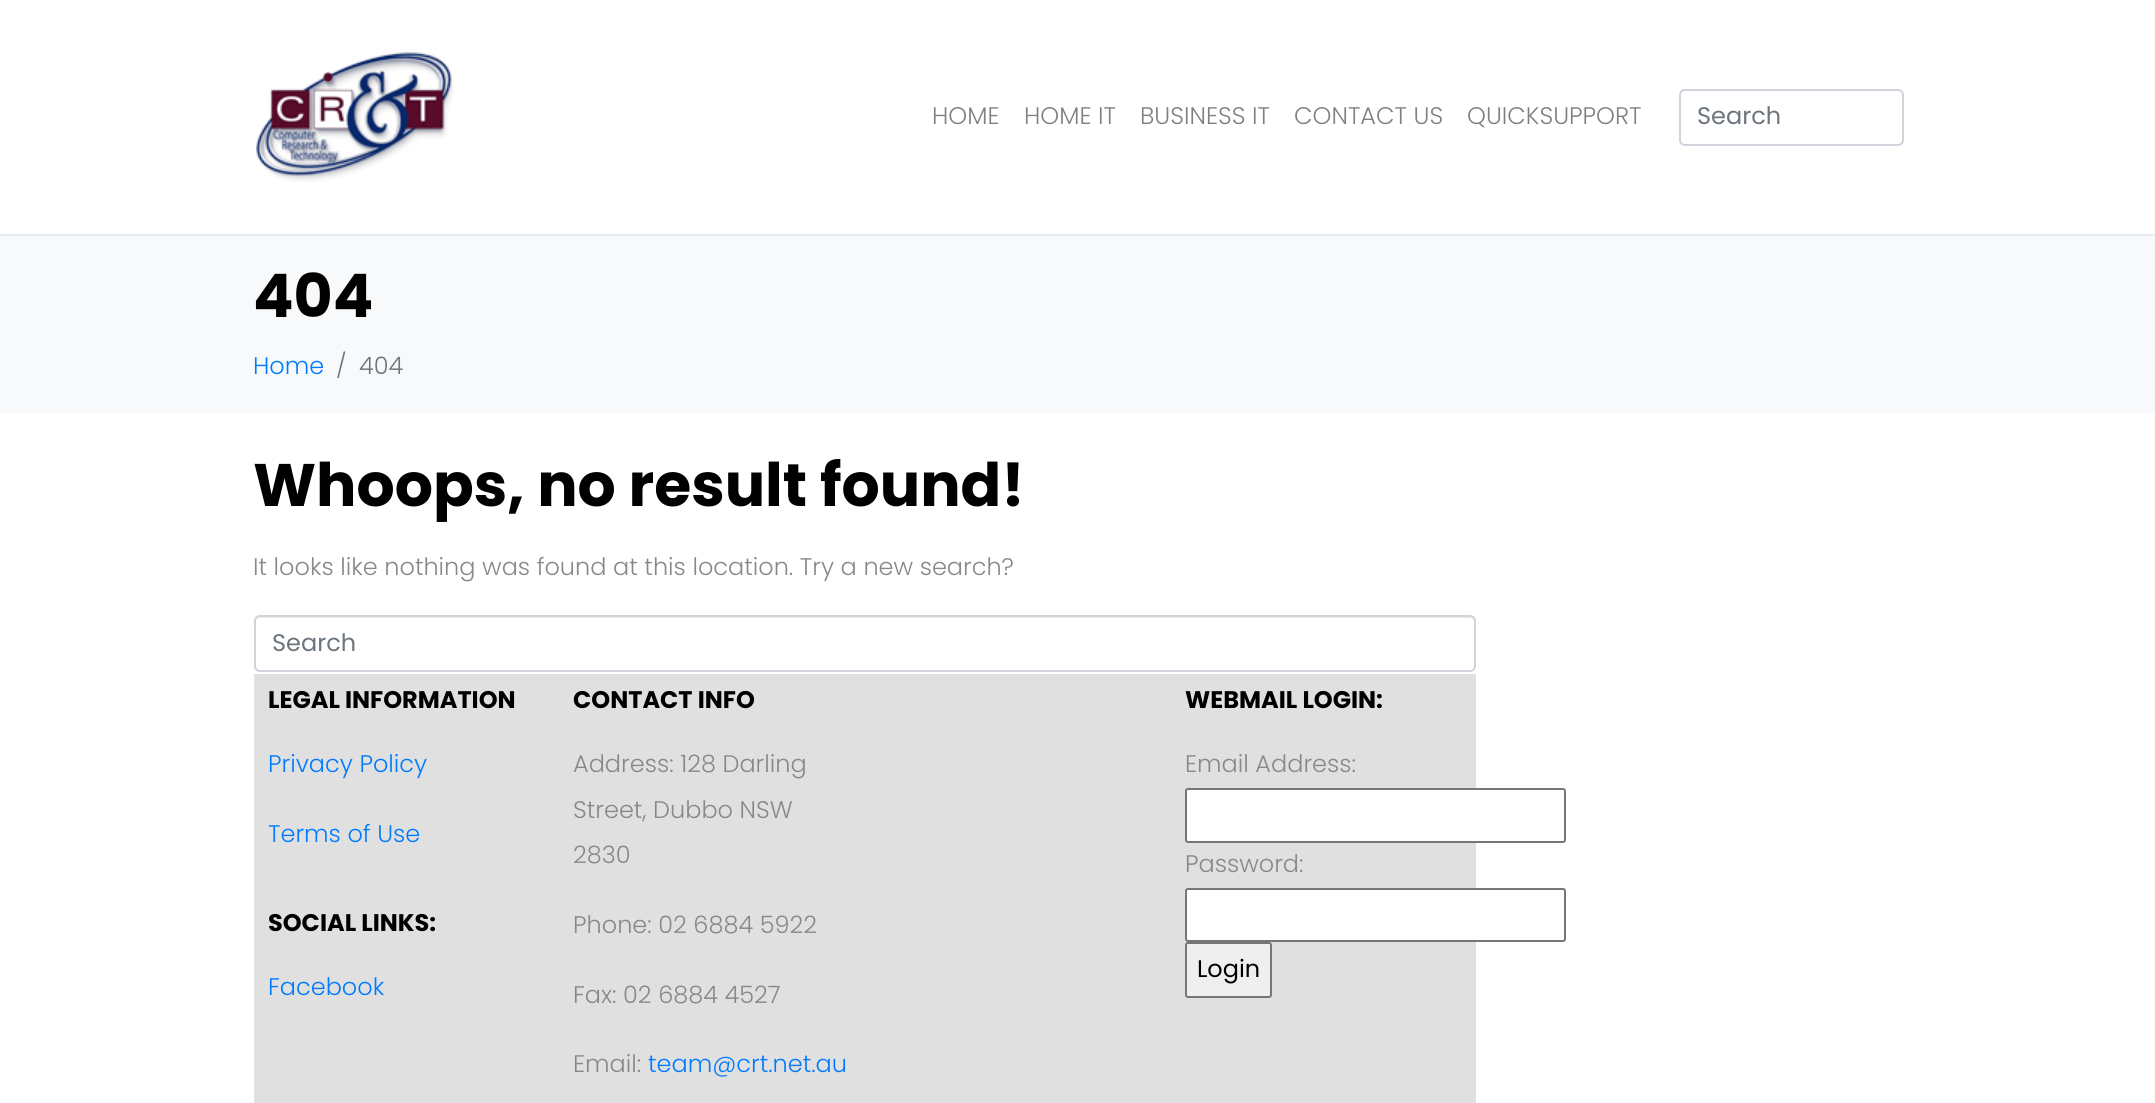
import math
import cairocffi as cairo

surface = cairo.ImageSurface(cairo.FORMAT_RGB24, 2155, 1103)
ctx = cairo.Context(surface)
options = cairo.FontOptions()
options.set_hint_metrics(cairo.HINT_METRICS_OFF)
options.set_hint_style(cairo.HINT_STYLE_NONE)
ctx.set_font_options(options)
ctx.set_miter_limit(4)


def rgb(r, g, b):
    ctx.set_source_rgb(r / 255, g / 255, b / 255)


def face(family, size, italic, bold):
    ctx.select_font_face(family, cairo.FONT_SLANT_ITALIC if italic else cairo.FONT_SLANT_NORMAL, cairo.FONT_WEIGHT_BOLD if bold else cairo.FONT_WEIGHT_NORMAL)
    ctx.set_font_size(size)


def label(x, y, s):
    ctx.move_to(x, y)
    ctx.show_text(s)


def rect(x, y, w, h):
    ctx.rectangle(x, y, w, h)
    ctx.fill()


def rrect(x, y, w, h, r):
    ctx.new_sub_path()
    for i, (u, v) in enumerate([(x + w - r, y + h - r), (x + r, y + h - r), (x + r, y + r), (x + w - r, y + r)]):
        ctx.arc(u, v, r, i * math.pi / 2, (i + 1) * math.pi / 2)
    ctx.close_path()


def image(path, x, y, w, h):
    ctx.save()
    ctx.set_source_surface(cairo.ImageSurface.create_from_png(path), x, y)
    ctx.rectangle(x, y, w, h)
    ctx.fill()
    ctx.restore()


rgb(255, 255, 255)
ctx.paint()
rgb(233, 236, 239)
rect(0, 234, 2155, 2)
image('image0.png', 256, 52, 198, 130)
face('Poppins Light', 24, 0, 0)
rgb(128, 128, 128)
label(932, 124, 'HOME')
label(1024, 124, 'HOME IT')
label(1140, 124, 'BUSINESS IT')
label(1294, 124, 'CONTACT US')
label(1467, 124, 'QUICKSUPPORT')
rrect(1680, 90, 223, 55, 5)
rgb(206, 212, 218)
ctx.stroke()
face('Poppins', 24, 0, 0)
rgb(108, 117, 125)
label(1697, 124, 'Search')
rgb(248, 249, 250)
rect(0, 236, 2155, 177)
face('Poppins', 60, 0, 1)
rgb(0, 0, 0)
label(253, 317, '404')
face('Poppins Light', 24, 0, 0)
rgb(0, 123, 255)
label(253, 374, 'Home')
rgb(108, 117, 125)
label(336, 374, '/')
label(359, 374, '404')
face('Poppins', 60, 0, 1)
rgb(0, 0, 0)
label(253, 506, 'Whoops, no result found!')
face('Poppins Light', 24, 0, 0)
rgb(136, 136, 136)
label(253, 575, 'It looks like nothing was found at this location. Try a new search?')
rgb(236, 236, 236)
ctx.new_path()
ctx.move_to(260, 618)
ctx.line_to(1470, 618)
ctx.curve_to(1472, 618, 1474, 620, 1474, 622)
ctx.line_to(1474, 669)
ctx.curve_to(1475, 668, 1475, 667, 1475, 666)
ctx.line_to(1475, 622)
ctx.curve_to(1475, 619, 1473, 617, 1470, 617)
ctx.line_to(260, 617)
ctx.curve_to(257, 617, 255, 619, 255, 622)
ctx.curve_to(255, 620, 257, 618, 260, 618)
ctx.close_path()
ctx.fill()
rrect(255, 616, 1220, 55, 5)
rgb(206, 212, 218)
ctx.stroke()
face('Poppins', 24, 0, 0)
rgb(108, 117, 125)
label(272, 651, 'Search')
rgb(225, 224, 224)
rect(254, 674, 1222, 429)
face('Poppins', 24, 0, 1)
rgb(0, 0, 0)
label(268, 708, 'LEGAL INFORMATION')
face('Poppins Light', 24, 0, 0)
rgb(0, 123, 255)
label(268, 772, 'Privacy Policy')
label(268, 842, 'Terms of Use')
face('Poppins', 24, 0, 1)
rgb(0, 0, 0)
label(268, 931, 'SOCIAL LINKS:')
face('Poppins Light', 24, 0, 0)
rgb(0, 123, 255)
label(268, 995, 'Facebook')
face('Poppins', 24, 0, 1)
rgb(0, 0, 0)
label(573, 708, 'CONTACT INFO')
face('Poppins Light', 24, 0, 0)
rgb(136, 136, 136)
label(573, 772, 'Address: 128 Darling')
label(573, 818, 'Street, Dubbo NSW')
label(573, 863, '2830')
label(573, 933, 'Phone: 02 6884 5922')
label(573, 1003, 'Fax: 02 6884 4527')
label(573, 1072, 'Email:')
rgb(0, 123, 255)
label(648, 1072, 'team@crt.net.au')
face('Poppins', 24, 0, 1)
rgb(0, 0, 0)
label(1185, 708, 'WEBMAIL LOGIN:')
face('Poppins Light', 24, 0, 0)
rgb(136, 136, 136)
label(1185, 772, 'Email Address:')
rgb(255, 255, 255)
rrect(1186, 789, 379, 53, 2)
ctx.fill_preserve()
rgb(118, 118, 118)
ctx.stroke()
rgb(136, 136, 136)
label(1185, 872, 'Password:')
rgb(255, 255, 255)
rrect(1186, 889, 379, 52, 2)
ctx.fill_preserve()
rgb(118, 118, 118)
ctx.stroke()
rgb(239, 239, 239)
rrect(1186, 943, 85, 54, 2)
ctx.fill_preserve()
rgb(118, 118, 118)
ctx.stroke()
face('Poppins', 24, 0, 0)
rgb(0, 0, 0)
label(1197, 977, 'Login')
surface.write_to_png('render.png')
